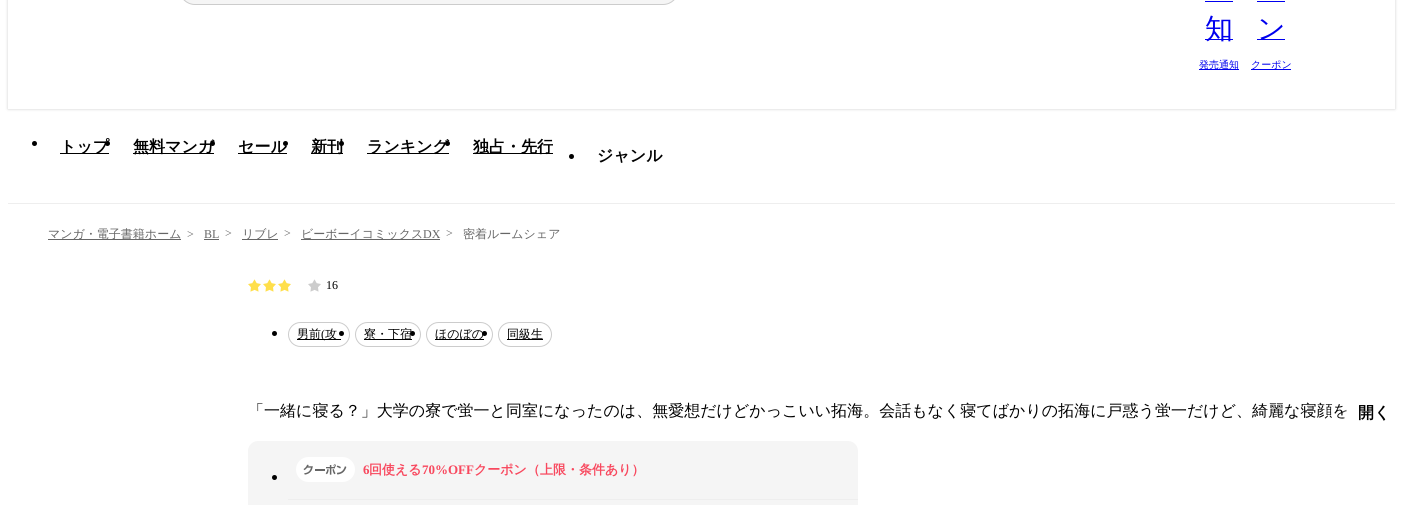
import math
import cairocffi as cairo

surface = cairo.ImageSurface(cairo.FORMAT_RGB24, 1403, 505)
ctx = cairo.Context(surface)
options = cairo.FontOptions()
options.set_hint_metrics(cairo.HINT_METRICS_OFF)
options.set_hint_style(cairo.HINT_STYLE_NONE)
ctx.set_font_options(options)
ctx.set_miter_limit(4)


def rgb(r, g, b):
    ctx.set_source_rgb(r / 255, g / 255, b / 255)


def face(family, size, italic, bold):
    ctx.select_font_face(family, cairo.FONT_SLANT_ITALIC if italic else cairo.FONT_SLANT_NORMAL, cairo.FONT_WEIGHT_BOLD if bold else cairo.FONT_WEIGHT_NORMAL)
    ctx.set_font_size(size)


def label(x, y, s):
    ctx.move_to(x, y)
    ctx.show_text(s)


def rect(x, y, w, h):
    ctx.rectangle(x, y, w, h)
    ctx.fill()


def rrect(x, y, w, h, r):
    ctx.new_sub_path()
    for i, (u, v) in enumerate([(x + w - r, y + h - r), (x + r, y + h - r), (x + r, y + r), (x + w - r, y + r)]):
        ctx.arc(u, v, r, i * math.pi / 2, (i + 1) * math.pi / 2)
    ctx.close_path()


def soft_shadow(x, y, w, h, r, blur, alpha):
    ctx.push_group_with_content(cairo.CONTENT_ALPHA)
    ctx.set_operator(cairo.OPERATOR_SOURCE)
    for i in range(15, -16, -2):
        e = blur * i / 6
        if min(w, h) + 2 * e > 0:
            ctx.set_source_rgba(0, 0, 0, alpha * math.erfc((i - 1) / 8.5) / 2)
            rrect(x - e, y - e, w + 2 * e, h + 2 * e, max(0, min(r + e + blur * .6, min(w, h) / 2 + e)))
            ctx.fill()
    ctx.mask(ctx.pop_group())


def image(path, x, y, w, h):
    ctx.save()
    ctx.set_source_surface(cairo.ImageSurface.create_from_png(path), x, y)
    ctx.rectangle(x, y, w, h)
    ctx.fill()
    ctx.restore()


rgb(255, 255, 255)
ctx.paint()
ctx.save()
ctx.set_fill_rule(cairo.FILL_RULE_EVEN_ODD)
ctx.new_path()
ctx.move_to(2, 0)
ctx.line_to(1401, 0)
ctx.line_to(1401, 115)
ctx.line_to(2, 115)
ctx.close_path()
ctx.move_to(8, -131)
ctx.line_to(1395, -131)
ctx.line_to(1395, 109)
ctx.line_to(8, 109)
ctx.close_path()
ctx.clip()
rgb(0, 0, 0)
soft_shadow(8, -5, 1387, 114, 0, 1.5, 0.2)
ctx.restore()
rgb(245, 245, 245)
rrect(179.5, -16.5, 499, 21, 15.5)
ctx.fill_preserve()
rgb(204, 204, 204)
ctx.set_line_width(1)
ctx.stroke()
rgb(0, 0, 238)
rect(1205, 39, 28, 1)
face('WenQuanYi Zen Hei Medium', 28, 0, 0)
label(1205, 38, '知')
rect(1205, 1, 28, 1)
rect(1199, 69, 40, 1)
face('WenQuanYi Zen Hei Medium', 10, 0, 0)
label(1199, 68, '発売通知')
rect(1257, 39, 28, 1)
face('WenQuanYi Zen Hei Medium', 28, 0, 0)
label(1257, 38, 'ン')
rect(1257, 1, 28, 1)
rect(1251, 69, 40, 1)
face('WenQuanYi Zen Hei Medium', 10, 0, 0)
label(1251, 68, 'クーポン')
rgb(238, 238, 238)
rect(8, 203, 1387, 1)
rgb(0, 0, 0)
ctx.new_path()
ctx.arc(34.5, 143.5, 2.5, 0, 2 * math.pi)
ctx.fill()
rect(60, 153, 49, 1)
face('WenQuanYi Zen Hei', 16, 0, 1)
label(60, 152, 'トップ')
ctx.new_path()
ctx.arc(107.5, 143.5, 2.5, 0, 2 * math.pi)
ctx.fill()
rect(133, 153, 81, 1)
label(133, 152, '無料マンガ')
ctx.new_path()
ctx.arc(212.5, 143.5, 2.5, 0, 2 * math.pi)
ctx.fill()
rect(238, 153, 49, 1)
label(238, 152, 'セール')
ctx.new_path()
ctx.arc(285.5, 143.5, 2.5, 0, 2 * math.pi)
ctx.fill()
rect(311, 153, 32, 1)
label(311, 152, '新刊')
ctx.new_path()
ctx.arc(341.5, 143.5, 2.5, 0, 2 * math.pi)
ctx.fill()
rect(367, 153, 82, 1)
label(367, 152, 'ランキング')
ctx.new_path()
ctx.arc(447.5, 143.5, 2.5, 0, 2 * math.pi)
ctx.fill()
rect(473, 153, 80, 1)
label(473, 152, '独占・先行')
ctx.new_path()
ctx.arc(571.5, 156.5, 2.5, 0, 2 * math.pi)
ctx.fill()
label(597, 161, 'ジャンル')
rgb(102, 102, 102)
rect(48, 239, 133, 1)
face('WenQuanYi Zen Hei Medium', 12, 0, 0)
label(48, 238, 'マンガ・電子書籍ホーム')
face('Liberation Serif', 12, 0, 0)
label(187, 238, '>')
label(204, 238, 'BL')
rect(204, 239, 15, 1)
label(225, 237, '>')
rect(242, 239, 36, 1)
face('WenQuanYi Zen Hei Medium', 12, 0, 0)
label(242, 238, 'リブレ')
face('Liberation Serif', 12, 0, 0)
label(284, 237, '>')
rect(301, 239, 139, 1)
face('WenQuanYi Zen Hei Medium', 12, 0, 0)
label(301, 238, 'ビーボーイコミックス')
face('Liberation Serif', 12, 0, 0)
label(423, 238, 'DX')
label(446, 237, '>')
face('WenQuanYi Zen Hei Medium', 12, 0, 0)
label(463, 238, '密着ルームシェア')
image('image0.png', 248, 279, 13, 13)
image('image0.png', 263, 279, 13, 13)
image('image0.png', 278, 279, 13, 13)
image('image1.png', 308, 279, 13, 13)
face('Liberation Serif', 12, 0, 0)
rgb(0, 0, 0)
label(326, 289, '16')
ctx.new_path()
ctx.arc(274.5, 333.5, 2.5, 0, 2 * math.pi)
ctx.fill()
rrect(288.5, 322.5, 61, 24, 12)
rgb(204, 204, 204)
ctx.stroke()
rgb(0, 0, 0)
rect(297, 339, 44, 1)
face('WenQuanYi Zen Hei Medium', 12, 0, 0)
label(297, 338, '男前')
face('Liberation Serif', 12, 0, 0)
label(321, 338, '(')
face('WenQuanYi Zen Hei Medium', 12, 0, 0)
label(325, 338, '攻')
ctx.new_path()
ctx.arc(341.5, 333.5, 2.5, 0, 2 * math.pi)
ctx.fill()
rrect(355.5, 322.5, 65, 24, 12)
rgb(204, 204, 204)
ctx.stroke()
rgb(0, 0, 0)
rect(364, 339, 48, 1)
label(364, 338, '寮・下宿')
ctx.new_path()
ctx.arc(412.5, 333.5, 2.5, 0, 2 * math.pi)
ctx.fill()
rrect(426.5, 322.5, 66, 24, 12)
rgb(204, 204, 204)
ctx.stroke()
rgb(0, 0, 0)
rect(435, 339, 49, 1)
label(435, 338, 'ほのぼの')
ctx.new_path()
ctx.arc(484.5, 333.5, 2.5, 0, 2 * math.pi)
ctx.fill()
rrect(498.5, 322.5, 53, 24, 12)
rgb(204, 204, 204)
ctx.stroke()
rgb(0, 0, 0)
rect(507, 339, 36, 1)
label(507, 338, '同級生')
face('WenQuanYi Zen Hei Medium', 16, 0, 0)
label(248, 416, '「一緒に寝る？」大学の寮で蛍一と同室になったのは、無愛想だけどかっこいい拓海。会話もなく寝てばかりの拓海に戸惑う蛍一だけど、綺麗な寝顔を')
gradient = cairo.LinearGradient(1395, 413, 1341, 413)
gradient.add_color_stop_rgba(0.79, 1, 1, 1, 1)
gradient.add_color_stop_rgba(1, 1, 1, 1, 0)
ctx.set_source(gradient)
rect(1343, 410, 4, 9)
face('WenQuanYi Zen Hei', 16, 0, 1)
rgb(0, 0, 0)
label(1358, 418, '開く')
rgb(245, 245, 245)
rrect(248, 441, 610, 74, 10)
ctx.fill()
image('image2.png', 296, 457, 59, 25)
face('Liberation Serif', 13, 0, 1)
rgb(248, 72, 94)
label(363, 474, '6')
face('WenQuanYi Zen Hei', 13, 0, 1)
label(369, 474, '回使える')
face('Liberation Serif', 13, 0, 1)
label(422, 474, '70%OFF')
face('WenQuanYi Zen Hei', 13, 0, 1)
label(474, 474, 'クーポン（上限・条件あり）')
rgb(0, 0, 0)
ctx.new_path()
ctx.arc(274.5, 477.5, 2.5, 0, 2 * math.pi)
ctx.fill()
rgb(238, 238, 238)
rect(288, 499, 570, 1)
surface.write_to_png('render.png')
